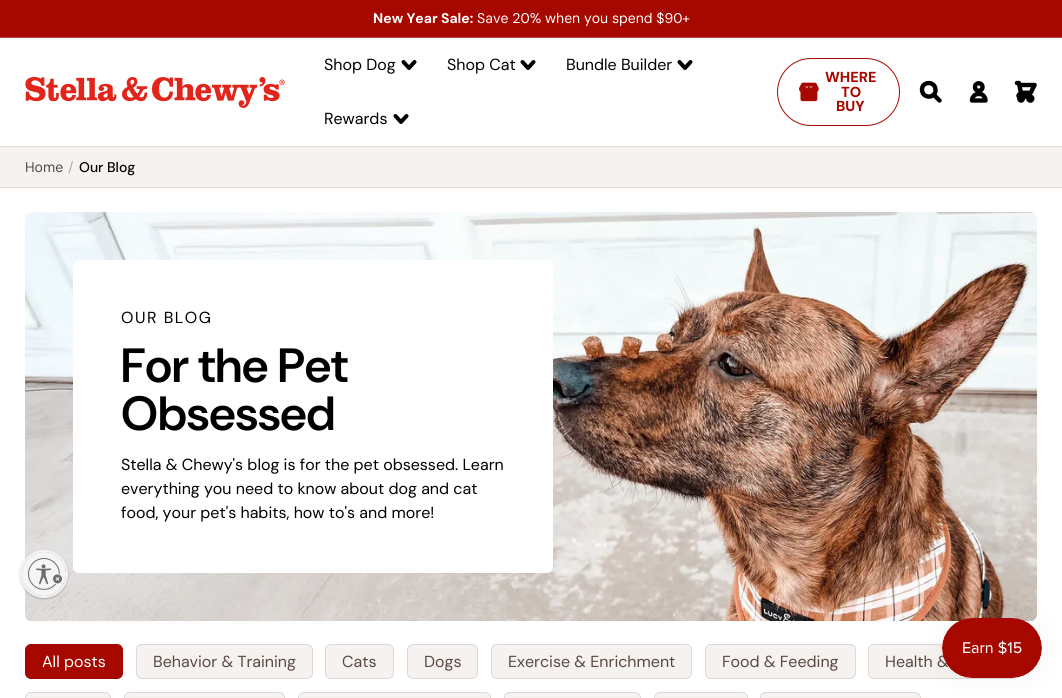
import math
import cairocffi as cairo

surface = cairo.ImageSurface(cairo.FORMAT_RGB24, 1062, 698)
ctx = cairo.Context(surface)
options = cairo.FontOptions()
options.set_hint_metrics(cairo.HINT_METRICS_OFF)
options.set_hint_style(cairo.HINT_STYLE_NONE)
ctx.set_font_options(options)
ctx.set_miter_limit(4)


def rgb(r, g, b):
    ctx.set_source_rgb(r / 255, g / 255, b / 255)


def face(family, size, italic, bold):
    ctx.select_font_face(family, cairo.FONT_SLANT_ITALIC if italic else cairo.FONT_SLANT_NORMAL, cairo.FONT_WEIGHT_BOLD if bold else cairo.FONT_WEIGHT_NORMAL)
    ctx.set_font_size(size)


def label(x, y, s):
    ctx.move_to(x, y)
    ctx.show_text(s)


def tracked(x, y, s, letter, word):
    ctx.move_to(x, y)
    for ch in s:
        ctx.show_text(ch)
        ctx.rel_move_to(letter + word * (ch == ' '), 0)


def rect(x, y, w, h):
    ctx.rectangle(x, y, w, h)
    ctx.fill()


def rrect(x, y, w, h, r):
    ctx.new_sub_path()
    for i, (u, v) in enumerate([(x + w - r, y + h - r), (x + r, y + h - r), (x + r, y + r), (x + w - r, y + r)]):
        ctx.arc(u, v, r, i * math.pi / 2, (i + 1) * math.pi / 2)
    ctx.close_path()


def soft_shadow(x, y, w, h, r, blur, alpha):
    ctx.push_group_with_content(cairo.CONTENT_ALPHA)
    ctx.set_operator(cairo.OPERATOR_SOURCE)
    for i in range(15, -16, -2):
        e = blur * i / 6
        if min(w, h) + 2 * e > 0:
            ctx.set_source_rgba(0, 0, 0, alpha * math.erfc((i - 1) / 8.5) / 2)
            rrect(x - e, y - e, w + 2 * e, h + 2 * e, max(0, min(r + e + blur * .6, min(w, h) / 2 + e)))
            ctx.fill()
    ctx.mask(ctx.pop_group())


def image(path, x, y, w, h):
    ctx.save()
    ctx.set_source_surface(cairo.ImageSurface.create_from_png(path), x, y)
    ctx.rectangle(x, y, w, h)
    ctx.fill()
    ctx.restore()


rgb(255, 255, 255)
ctx.paint()
rgb(166, 8, 0)
rect(0, 0, 1062, 37)
rgb(188, 70, 64)
rect(0, 37, 1062, 1)
face('DM Sans', 14, 0, 1)
rgb(255, 255, 255)
label(373, 23, 'New Year Sale:')
face('DM Sans', 14, 0, 0)
label(477, 23, 'Save 20% when you spend $90+')
rgb(222, 222, 222)
rect(0, 146, 1062, 1)
image('image0.png', 25, 77, 260, 31)
face('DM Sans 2', 16, 0, 0)
rgb(0, 0, 0)
label(324, 70, 'Shop Dog')
ctx.new_path()
ctx.move_to(414.5, 62)
ctx.line_to(409, 68)
ctx.line_to(403.5, 62)
ctx.set_line_width(4)
ctx.set_line_cap(cairo.LINE_CAP_ROUND)
ctx.set_line_join(cairo.LINE_JOIN_ROUND)
ctx.stroke()
label(447, 70, 'Shop Cat')
ctx.new_path()
ctx.move_to(533.5, 62)
ctx.line_to(528, 68)
ctx.line_to(522.5, 62)
ctx.stroke()
label(566, 70, 'Bundle Builder')
ctx.new_path()
ctx.move_to(690.5, 62)
ctx.line_to(685, 68)
ctx.line_to(679.5, 62)
ctx.stroke()
label(324, 124, 'Rewards')
ctx.new_path()
ctx.move_to(406.5, 116)
ctx.line_to(401, 122)
ctx.line_to(395.5, 116)
ctx.stroke()
rrect(777.5, 58.5, 122, 67, 33.5)
rgb(166, 8, 0)
ctx.set_line_width(1)
ctx.set_line_cap(cairo.LINE_CAP_BUTT)
ctx.set_line_join(cairo.LINE_JOIN_MITER)
ctx.stroke()
image('image1.png', 799, 82, 20, 20)
face('DM Sans ExtraBold', 14.5, 0, 0)
label(825, 82, 'WHERE')
label(841, 97, 'TO')
label(836, 111, 'BUY')
ctx.new_path()
ctx.move_to(939.5, 100.5)
ctx.line_to(933.5, 94.5)
ctx.move_to(935.5, 90)
ctx.curve_to(936, 98.5, 922.5, 99, 922, 90)
ctx.curve_to(921.5, 81, 935.5, 80.5, 935.5, 90)
ctx.close_path()
rgb(0, 0, 0)
ctx.set_line_width(4.4)
ctx.set_line_cap(cairo.LINE_CAP_ROUND)
ctx.set_line_join(cairo.LINE_JOIN_ROUND)
ctx.stroke()
ctx.new_path()
ctx.move_to(982.5, 87)
ctx.curve_to(982.5, 92, 975, 92, 975, 87)
ctx.curve_to(975, 82, 982.5, 82, 982.5, 87)
ctx.close_path()
ctx.move_to(979, 94)
ctx.curve_to(975, 93.5, 972, 97, 972, 100.5)
ctx.line_to(985.5, 100.5)
ctx.curve_to(985.5, 97, 982.5, 93.5, 979, 94)
ctx.close_path()
ctx.stroke()
image('image2.png', 1014, 80, 23, 23)
rgb(245, 242, 240)
rect(0, 147, 1062, 40)
rgb(221, 218, 216)
rect(0, 187, 1062, 1)
face('DM Sans', 14, 0, 0)
rgb(74, 73, 72)
label(25, 172, 'Home')
rgb(172, 169, 168)
label(68, 172, '/')
face('DM Sans Medium', 14, 0, 0)
rgb(0, 0, 0)
label(79, 172, 'Our Blog')
image('image3.png', 25, 212, 1012, 409)
rgb(255, 255, 255)
rrect(73, 260, 480, 313, 6)
ctx.fill()
face('DM Sans 2', 16, 0, 0)
rgb(0, 0, 0)
tracked(121, 323, 'OUR BLOG', 1.5, 0)
face('DM Sans SemiBold', 48, 0, 0)
label(121, 382, 'For the Pet')
label(121, 430, 'Obsessed')
face('DM Sans 2', 16, 0, 0)
label(121, 470, 'Stella & Chewy\'s blog is for the pet obsessed. Learn')
label(121, 494, 'everything you need to know about dog and cat')
label(121, 518, 'food, your pet\'s habits, how to\'s and more!')
rgb(166, 8, 0)
rrect(25.5, 644.5, 97, 34, 5.5)
ctx.fill_preserve()
ctx.set_line_width(1)
ctx.set_line_cap(cairo.LINE_CAP_BUTT)
ctx.set_line_join(cairo.LINE_JOIN_MITER)
ctx.stroke()
rgb(255, 255, 255)
label(42, 667, 'All posts')
rgb(245, 242, 240)
rrect(136.5, 644.5, 176, 34, 5.5)
ctx.fill_preserve()
rgb(223, 216, 216)
ctx.stroke()
rgb(89, 72, 65)
label(153, 667, 'Behavior & Training')
rgb(245, 242, 240)
rrect(325.5, 644.5, 68, 34, 5.5)
ctx.fill_preserve()
rgb(223, 216, 216)
ctx.stroke()
rgb(89, 72, 65)
label(342, 667, 'Cats')
rgb(245, 242, 240)
rrect(407.5, 644.5, 70, 34, 5.5)
ctx.fill_preserve()
rgb(223, 216, 216)
ctx.stroke()
rgb(89, 72, 65)
label(424, 667, 'Dogs')
rgb(245, 242, 240)
rrect(491.5, 644.5, 200, 34, 5.5)
ctx.fill_preserve()
rgb(223, 216, 216)
ctx.stroke()
rgb(89, 72, 65)
label(508, 667, 'Exercise & Enrichment')
rgb(245, 242, 240)
rrect(705.5, 644.5, 150, 34, 5.5)
ctx.fill_preserve()
rgb(223, 216, 216)
ctx.stroke()
rgb(89, 72, 65)
label(722, 667, 'Food & Feeding')
rgb(245, 242, 240)
rrect(868.5, 644.5, 149, 34, 5.5)
ctx.fill_preserve()
rgb(223, 216, 216)
ctx.stroke()
rgb(89, 72, 65)
label(885, 667, 'Health &')
rgb(245, 242, 240)
rrect(25.5, 692.5, 85, 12, 5.5)
ctx.fill_preserve()
rgb(223, 216, 216)
ctx.stroke()
rgb(245, 242, 240)
rrect(124.5, 692.5, 160, 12, 5.5)
ctx.fill_preserve()
rgb(223, 216, 216)
ctx.stroke()
rgb(245, 242, 240)
rrect(298.5, 692.5, 192, 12, 5.5)
ctx.fill_preserve()
rgb(223, 216, 216)
ctx.stroke()
rgb(245, 242, 240)
rrect(504.5, 692.5, 136, 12, 5.5)
ctx.fill_preserve()
rgb(223, 216, 216)
ctx.stroke()
rgb(245, 242, 240)
rrect(654.5, 692.5, 93, 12, 5.5)
ctx.fill_preserve()
rgb(223, 216, 216)
ctx.stroke()
rgb(245, 242, 240)
rrect(760.5, 692.5, 160, 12, 5.5)
ctx.fill_preserve()
rgb(223, 216, 216)
ctx.stroke()
rgb(0, 0, 0)
soft_shadow(20, 551, 48, 48, 24, 1, 0.24)
ctx.arc(44, 574, 23, 0, 2 * math.pi)
rgb(245, 245, 245)
ctx.set_line_width(2)
ctx.stroke()
ctx.save()
rrect(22, 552, 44, 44, 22)
ctx.clip()
rgb(0, 0, 0)
soft_shadow(22, 553, 44, 44, 22, 1, 0.24)
ctx.restore()
ctx.arc(44, 574, 22, 0, 2 * math.pi)
ctx.fill()
image('image4.png', 28, 558, 34, 32)
rgb(0, 0, 0)
soft_shadow(942, 618, 100, 60, 30, 12.5, 0.05)
image('image5.png', 942, 618, 100, 60)
surface.write_to_png('render.png')
